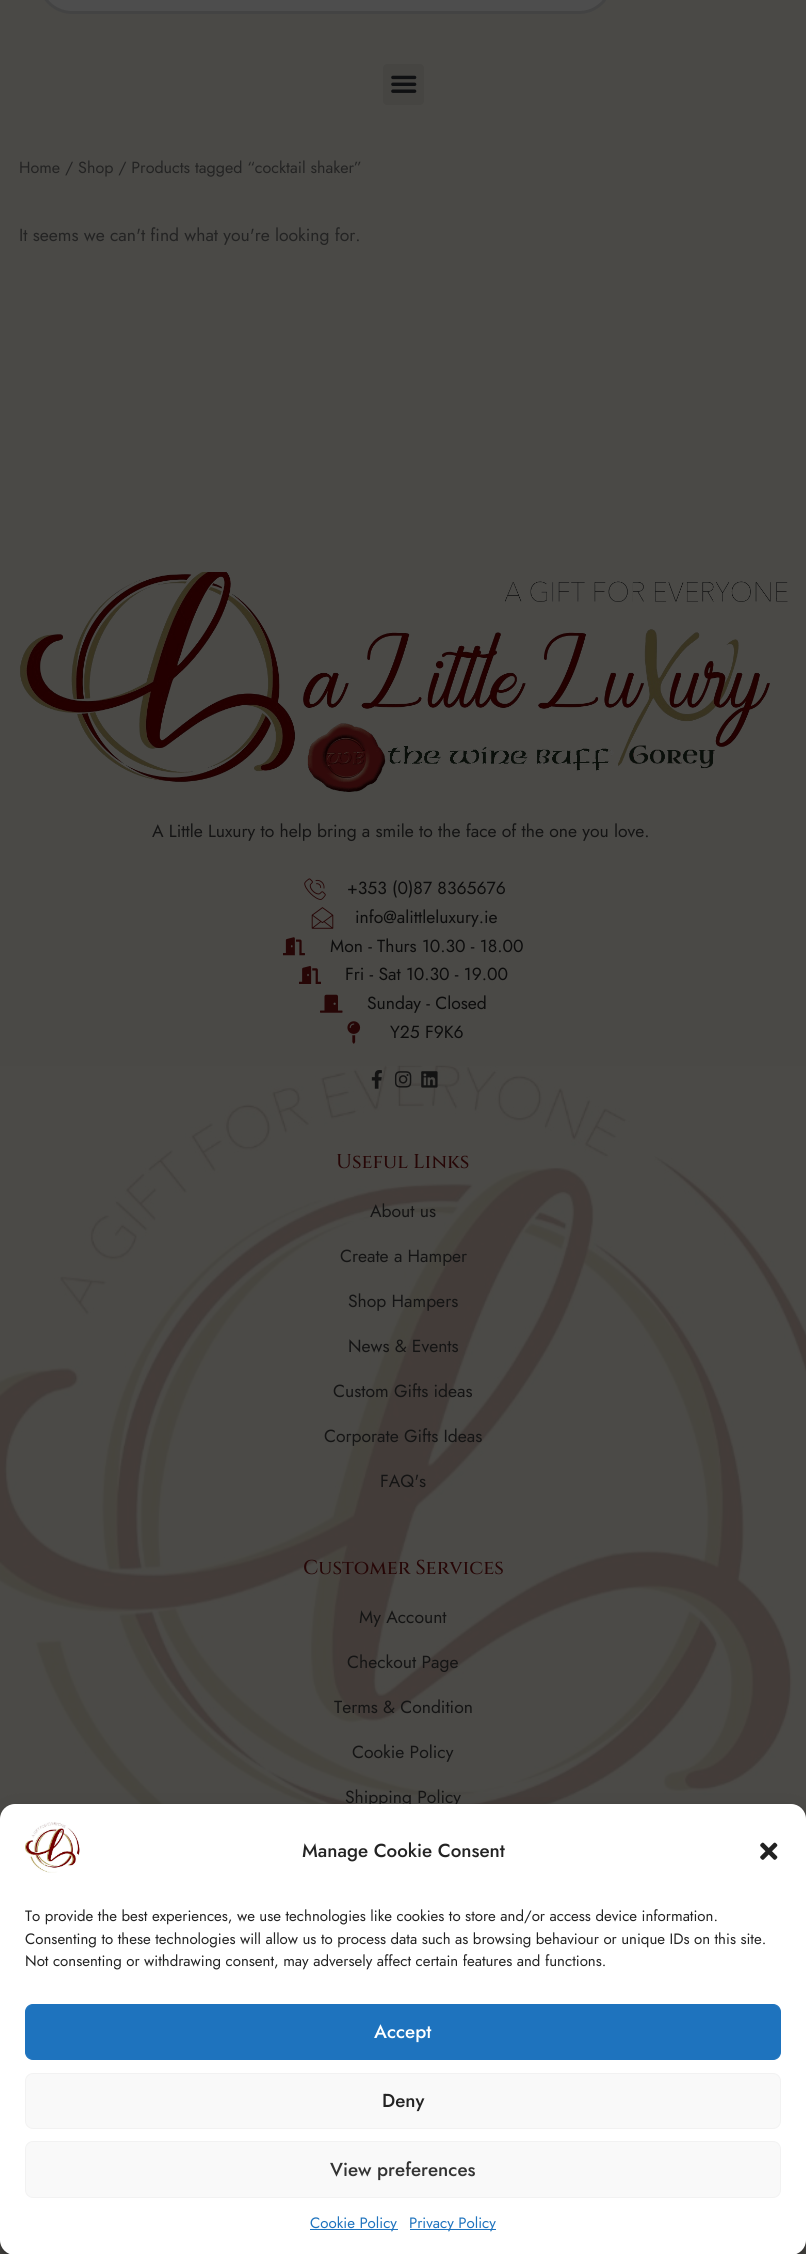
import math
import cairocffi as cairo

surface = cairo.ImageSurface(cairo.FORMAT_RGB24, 806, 2254)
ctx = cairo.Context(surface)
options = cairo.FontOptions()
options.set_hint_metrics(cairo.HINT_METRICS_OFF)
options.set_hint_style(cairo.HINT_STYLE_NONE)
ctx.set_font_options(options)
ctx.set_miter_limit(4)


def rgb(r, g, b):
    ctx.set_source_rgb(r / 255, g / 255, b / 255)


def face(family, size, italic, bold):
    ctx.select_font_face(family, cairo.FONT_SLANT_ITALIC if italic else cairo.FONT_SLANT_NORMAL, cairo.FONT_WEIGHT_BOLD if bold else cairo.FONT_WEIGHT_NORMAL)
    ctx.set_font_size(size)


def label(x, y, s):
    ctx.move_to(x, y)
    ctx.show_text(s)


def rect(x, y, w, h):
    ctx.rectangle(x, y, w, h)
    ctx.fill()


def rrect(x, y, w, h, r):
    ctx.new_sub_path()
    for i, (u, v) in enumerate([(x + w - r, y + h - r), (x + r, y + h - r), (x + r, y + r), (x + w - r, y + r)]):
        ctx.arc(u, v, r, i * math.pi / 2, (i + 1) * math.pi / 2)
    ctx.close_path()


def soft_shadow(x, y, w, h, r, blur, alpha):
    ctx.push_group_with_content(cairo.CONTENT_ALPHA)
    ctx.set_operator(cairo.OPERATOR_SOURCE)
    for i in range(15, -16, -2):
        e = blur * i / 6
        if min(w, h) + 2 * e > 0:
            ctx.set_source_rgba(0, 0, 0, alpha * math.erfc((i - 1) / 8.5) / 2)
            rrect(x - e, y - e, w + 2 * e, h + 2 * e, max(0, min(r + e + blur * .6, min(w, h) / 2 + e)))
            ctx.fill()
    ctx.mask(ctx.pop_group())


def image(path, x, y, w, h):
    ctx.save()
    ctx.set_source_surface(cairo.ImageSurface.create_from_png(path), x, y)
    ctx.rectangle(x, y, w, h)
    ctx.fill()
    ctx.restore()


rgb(74, 73, 70)
ctx.paint()
rgb(77, 77, 77)
rrect(39.5, -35.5, 572, 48, 32.5)
ctx.fill_preserve()
rgb(67, 67, 67)
ctx.set_line_width(3)
ctx.stroke()
rgb(70, 69, 66)
rrect(383, 64, 41, 41, 4)
ctx.fill()
image('image0.png', 391, 75, 26, 18)
face('Jost', 16.1, 0, 0)
rgb(35, 35, 35)
label(19, 173, 'Home / Shop / Products tagged “cocktail shaker”')
face('Jost', 17.5, 0, 0)
label(19, 241, 'It seems we can\'t find what you\'re looking for.')
image('image1.png', 20, 572, 768, 220)
rgb(20, 20, 20)
label(152, 837, 'A Little Luxury to help bring a smile to the face of the one you love.')
image('image2.png', 304, 878, 22, 22)
rgb(12, 12, 12)
label(347, 894, '+353 (0)87 8365676')
image('image3.png', 311, 907, 23, 22)
label(355, 923, 'info@alittleluxury.ie')
image('image4.png', 283, 937, 22, 19)
label(330, 952, 'Mon - Thurs 10.30 - 18.00')
image('image5.png', 299, 966, 22, 18)
label(345, 980, 'Fri - Sat 10.30 - 19.00')
image('image6.png', 320, 994, 23, 19)
label(367, 1009, 'Sunday - Closed')
image('image7.png', 347, 1021, 14, 23)
label(390, 1038, 'Y25 F9K6')
image('image11.png', 0, 1065, 806, 754)
image('image8.png', 371, 1070, 11, 19)
image('image9.png', 394, 1071, 18, 17)
image('image10.png', 421, 1071, 17, 17)
face('Cinzel Medium', 20, 0, 0)
rgb(38, 6, 6)
label(336, 1168, 'Useful Links')
face('Jost', 17.5, 0, 0)
rgb(20, 20, 20)
label(370, 1217, 'About us')
label(340, 1262, 'Create a Hamper')
label(348, 1307, 'Shop Hampers')
label(348, 1352, 'News & Events')
label(333, 1397, 'Custom Gifts ideas')
label(324, 1442, 'Corporate Gifts Ideas')
label(380, 1487, 'FAQ\'s')
face('Cinzel Medium', 20, 0, 0)
rgb(38, 6, 6)
label(303, 1574, 'Customer Services')
face('Jost', 17.5, 0, 0)
rgb(20, 20, 20)
label(359, 1623, 'My Account')
label(347, 1668, 'Checkout Page')
label(334, 1713, 'Terms & Condition')
label(352, 1758, 'Cookie Policy')
label(345, 1803, 'Shipping Policy')
rgb(0, 0, 0)
soft_shadow(0, 1811, 806, 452, 15, 4, 0.23)
soft_shadow(0, 1816, 806, 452, 15, 12.5, 0.19)
rgb(255, 255, 255)
rrect(0, 1804, 806, 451, 15)
ctx.fill()
image('image12.png', 25, 1822, 55, 51)
face('Jost Medium', 18.75, 0, 0)
rgb(35, 35, 35)
label(302, 1857, 'Manage Cookie Consent')
image('image13.png', 760, 1842, 18, 18)
face('Jost', 15, 0, 0)
label(25, 1921, 'To provide the best experiences, we use technologies like cookies to store and/or access device information.')
label(25, 1944, 'Consenting to these technologies will allow us to process data such as browsing behaviour or unique IDs on this site.')
label(25, 1966, 'Not consenting or withdrawing consent, may adversely affect certain features and functions.')
rgb(30, 115, 190)
rrect(25.5, 2004.5, 755, 55, 7.5)
ctx.fill_preserve()
ctx.set_line_width(1)
ctx.stroke()
face('Jost Medium', 18.75, 0, 0)
rgb(255, 255, 255)
label(374, 2038, 'Accept')
rgb(249, 249, 249)
rrect(25.5, 2073.5, 755, 55, 7.5)
ctx.fill_preserve()
rgb(242, 242, 242)
ctx.stroke()
rgb(35, 35, 35)
label(382, 2107, 'Deny')
rgb(249, 249, 249)
rrect(25.5, 2141.5, 755, 56, 7.5)
ctx.fill_preserve()
rgb(242, 242, 242)
ctx.stroke()
rgb(51, 51, 51)
label(330, 2176, 'View preferences')
rgb(30, 115, 190)
rect(310, 2229, 88, 1)
face('Jost', 15, 0, 0)
label(310, 2228, 'Cookie Policy')
rect(410, 2229, 86, 1)
label(409, 2228, 'Privacy Policy')
surface.write_to_png('render.png')
